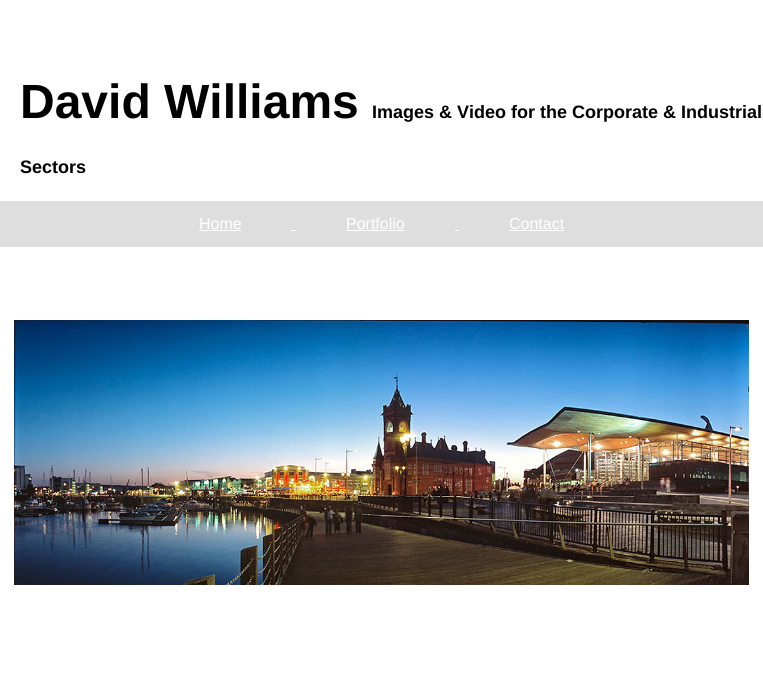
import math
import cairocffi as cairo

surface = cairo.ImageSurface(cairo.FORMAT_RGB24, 763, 673)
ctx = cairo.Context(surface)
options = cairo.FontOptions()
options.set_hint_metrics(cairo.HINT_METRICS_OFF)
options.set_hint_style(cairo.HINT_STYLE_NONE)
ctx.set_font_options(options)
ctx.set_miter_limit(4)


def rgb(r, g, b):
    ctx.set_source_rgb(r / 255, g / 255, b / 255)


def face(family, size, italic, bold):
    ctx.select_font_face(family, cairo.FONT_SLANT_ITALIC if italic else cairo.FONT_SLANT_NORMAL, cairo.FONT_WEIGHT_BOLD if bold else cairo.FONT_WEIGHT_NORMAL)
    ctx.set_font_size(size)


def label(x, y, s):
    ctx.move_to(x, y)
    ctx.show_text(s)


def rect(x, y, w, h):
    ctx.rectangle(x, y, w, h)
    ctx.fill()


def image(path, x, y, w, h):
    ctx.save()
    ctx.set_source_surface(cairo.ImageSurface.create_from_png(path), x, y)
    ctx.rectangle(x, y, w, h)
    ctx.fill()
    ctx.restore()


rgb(255, 255, 255)
ctx.paint()
face('Liberation Sans', 48, 0, 1)
rgb(0, 0, 0)
label(20, 118, 'David Williams')
face('Liberation Sans', 18, 0, 1)
label(372, 118, 'Images & Video for the Corporate & Industrial')
label(20, 173, 'Sectors')
rgb(222, 222, 222)
rect(0, 201, 763, 46)
face('Liberation Sans', 16, 0, 0)
rgb(255, 255, 255)
label(199, 229, 'Home')
rect(199, 230, 42, 1)
label(346, 229, 'Portfolio')
rect(346, 230, 59, 1)
label(509, 229, 'Contact')
rect(509, 230, 55, 1)
rect(291, 230, 5, 1)
rect(455, 230, 4, 1)
image('image0.png', 14, 320, 735, 265)
surface.write_to_png('render.png')
